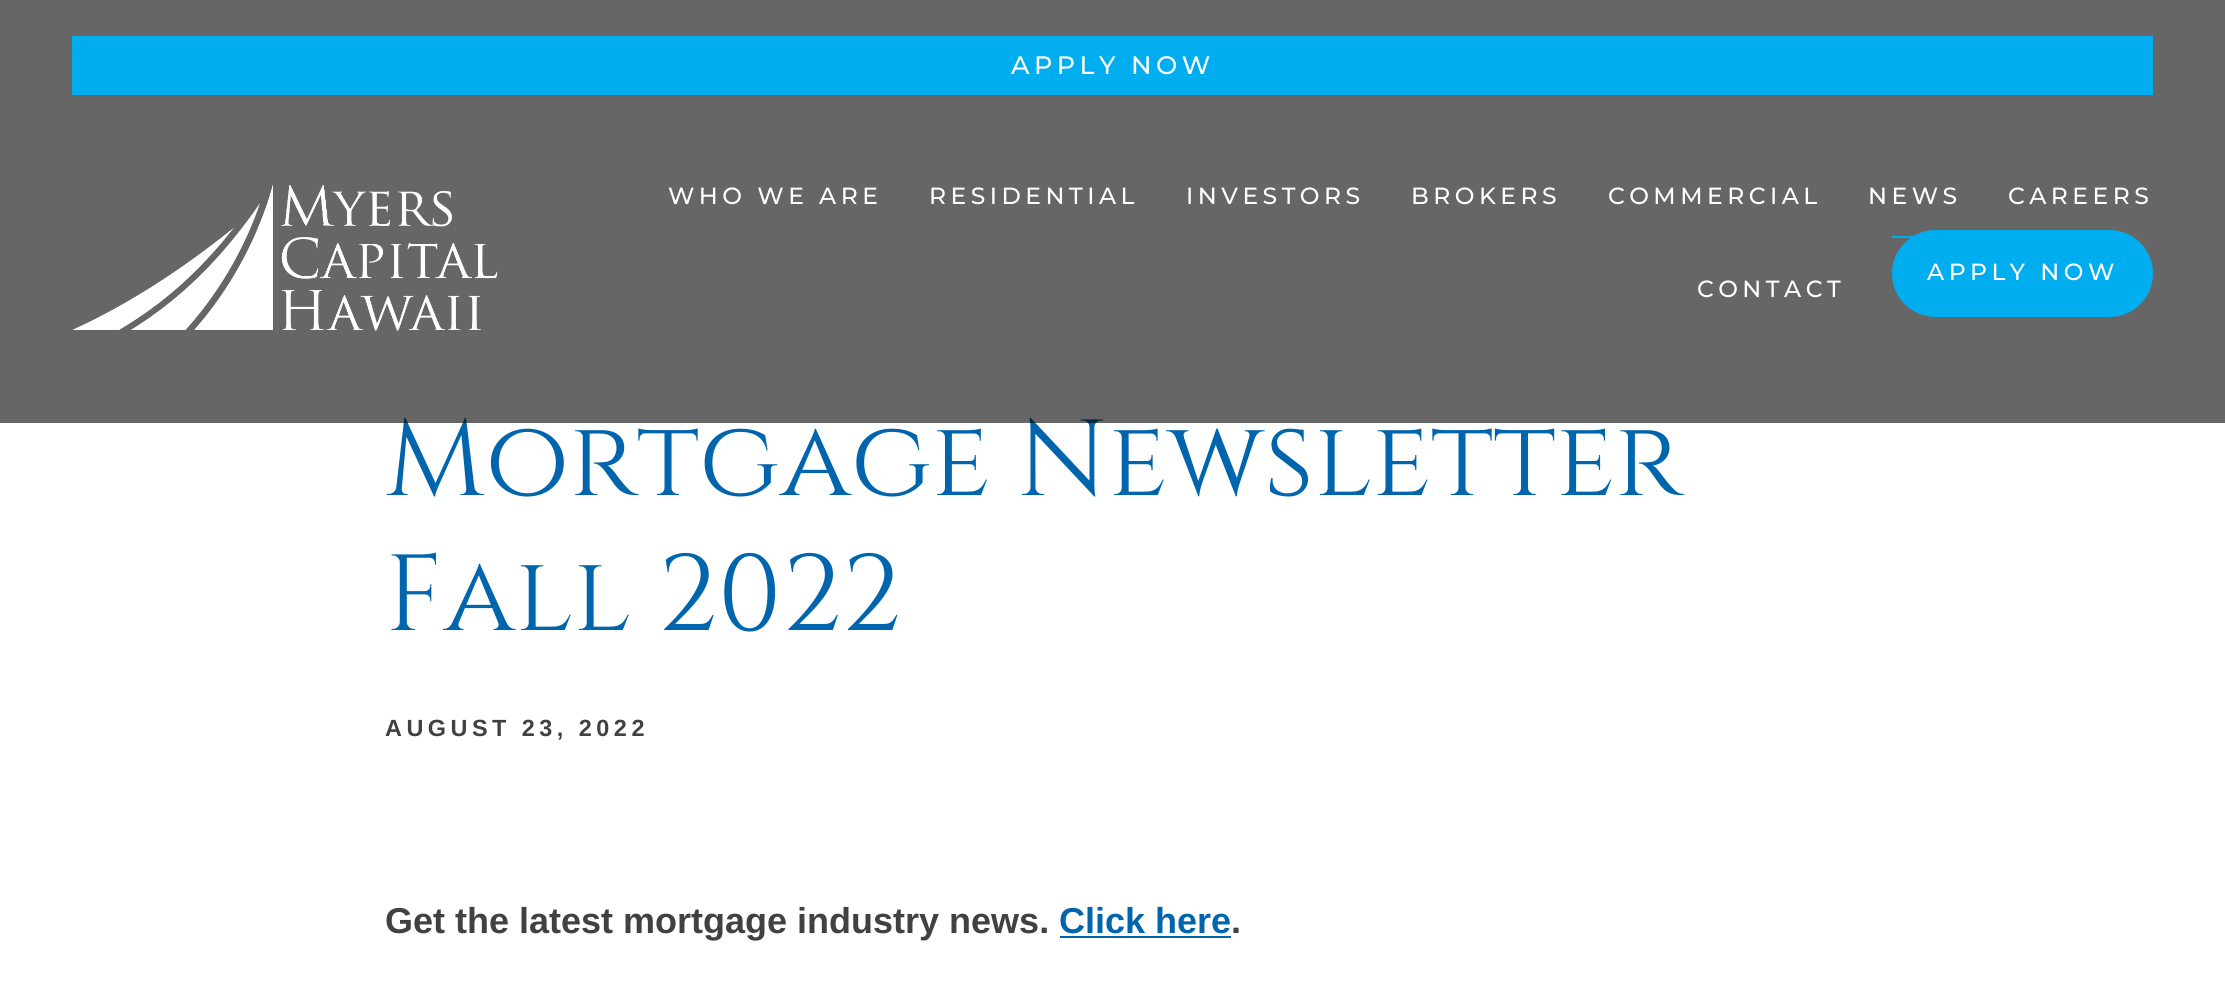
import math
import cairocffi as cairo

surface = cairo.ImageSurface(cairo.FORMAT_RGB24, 2225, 994)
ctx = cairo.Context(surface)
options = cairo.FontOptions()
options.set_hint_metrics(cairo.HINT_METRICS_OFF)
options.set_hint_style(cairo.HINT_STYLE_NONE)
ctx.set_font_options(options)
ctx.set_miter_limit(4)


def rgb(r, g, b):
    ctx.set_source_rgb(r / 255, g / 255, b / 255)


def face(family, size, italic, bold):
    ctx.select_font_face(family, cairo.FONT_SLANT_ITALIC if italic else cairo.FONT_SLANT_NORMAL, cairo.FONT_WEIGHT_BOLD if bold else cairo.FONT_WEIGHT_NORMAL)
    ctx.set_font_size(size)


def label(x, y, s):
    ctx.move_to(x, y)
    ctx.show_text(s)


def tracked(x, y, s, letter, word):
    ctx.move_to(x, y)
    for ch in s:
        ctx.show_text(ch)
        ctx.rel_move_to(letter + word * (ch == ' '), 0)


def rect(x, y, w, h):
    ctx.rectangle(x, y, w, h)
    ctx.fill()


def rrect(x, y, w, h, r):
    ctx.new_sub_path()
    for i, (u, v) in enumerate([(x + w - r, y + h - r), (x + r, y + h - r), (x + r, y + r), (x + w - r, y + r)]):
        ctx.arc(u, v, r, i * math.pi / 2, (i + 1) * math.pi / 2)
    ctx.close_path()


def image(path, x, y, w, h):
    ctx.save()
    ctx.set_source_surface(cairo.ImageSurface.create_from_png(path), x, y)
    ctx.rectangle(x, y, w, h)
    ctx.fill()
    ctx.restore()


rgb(255, 255, 255)
ctx.paint()
face('Cinzel', 108, 0, 0)
rgb(0, 101, 173)
label(385, 495, 'Mortgage Newsletter')
ctx.set_source_rgba(0, 0, 0, 0.6)
rect(0, 0, 2225, 423)
rgb(0, 173, 238)
rect(72, 36, 2081, 59)
face('Montserrat Medium', 25.25, 0, 0)
rgb(255, 255, 255)
tracked(1011, 74, 'APPLY NOW', 4.5, 0)
image('image0.png', 72, 185, 426, 146)
face('Montserrat Medium', 23.4, 0, 0)
tracked(668, 204, 'WHO WE ARE', 4.5, 0)
tracked(929, 204, 'RESIDENTIAL', 4.5, 0)
tracked(1186, 204, 'INVESTORS', 4.5, 0)
tracked(1411, 204, 'BROKERS', 4.5, 0)
tracked(1608, 204, 'COMMERCIAL', 4.5, 0)
tracked(1868, 204, 'NEWS', 4.5, 0)
rgb(0, 173, 238)
rect(1892, 236, 22, 2)
rgb(255, 255, 255)
tracked(2008, 204, 'CAREERS', 4.5, 0)
rgb(0, 173, 238)
rrect(1892, 230, 261, 87, 43.5)
ctx.fill()
rgb(255, 255, 255)
tracked(1927, 280, 'APPLY NOW', 4.5, 0)
tracked(1697, 297, 'CONTACT', 4.5, 0)
face('Cinzel', 108, 0, 0)
rgb(0, 101, 173)
label(385, 630, 'Fall 2022')
face('Liberation Sans', 23.4, 0, 1)
rgb(65, 65, 65)
tracked(385, 736, 'AUGUST 23, 2022', 4.5, 0)
face('Liberation Sans', 36, 0, 1)
label(385, 933, 'Get the latest mortgage industry news.')
rgb(0, 101, 173)
label(1059, 933, 'Click here')
rect(1060, 936, 171, 2)
rgb(65, 65, 65)
label(1231, 933, '.')
surface.write_to_png('render.png')
